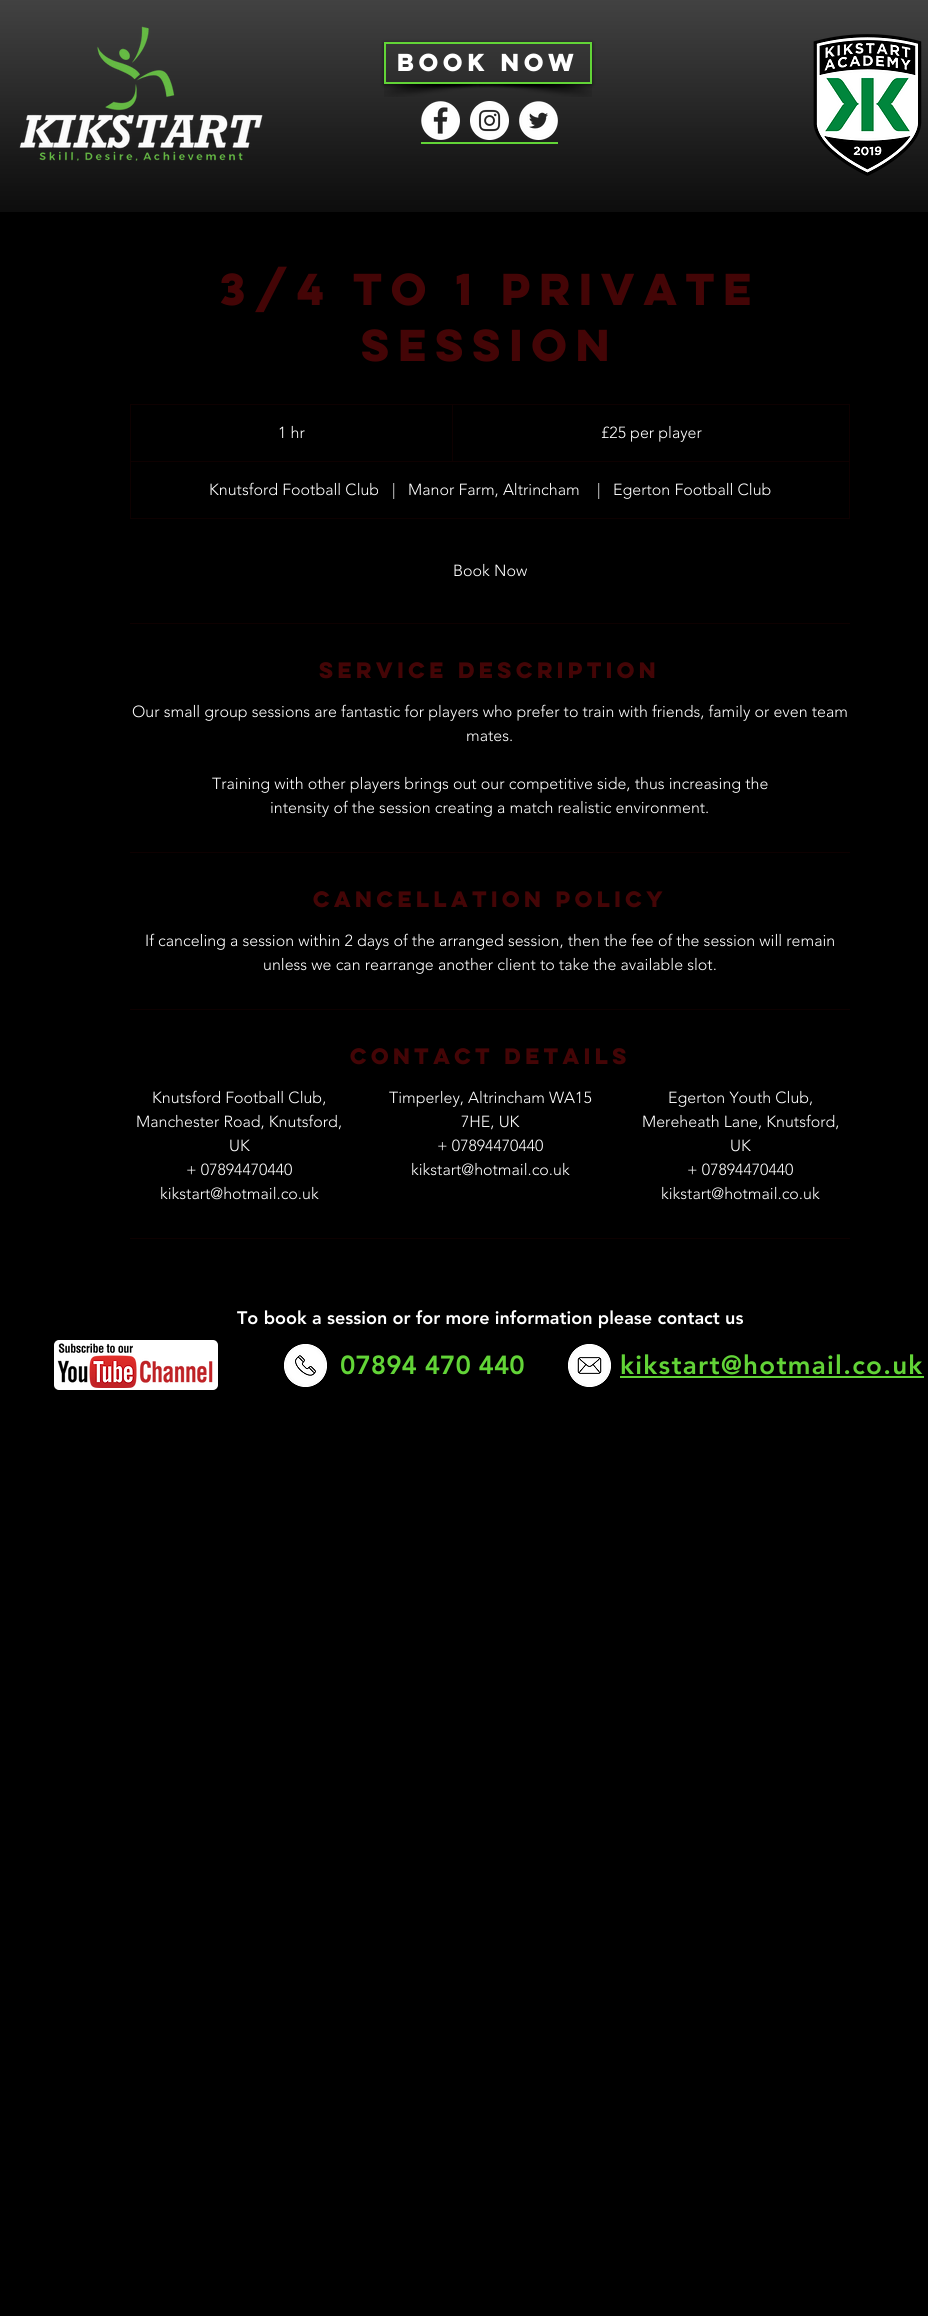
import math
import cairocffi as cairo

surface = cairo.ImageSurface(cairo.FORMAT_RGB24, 928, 2316)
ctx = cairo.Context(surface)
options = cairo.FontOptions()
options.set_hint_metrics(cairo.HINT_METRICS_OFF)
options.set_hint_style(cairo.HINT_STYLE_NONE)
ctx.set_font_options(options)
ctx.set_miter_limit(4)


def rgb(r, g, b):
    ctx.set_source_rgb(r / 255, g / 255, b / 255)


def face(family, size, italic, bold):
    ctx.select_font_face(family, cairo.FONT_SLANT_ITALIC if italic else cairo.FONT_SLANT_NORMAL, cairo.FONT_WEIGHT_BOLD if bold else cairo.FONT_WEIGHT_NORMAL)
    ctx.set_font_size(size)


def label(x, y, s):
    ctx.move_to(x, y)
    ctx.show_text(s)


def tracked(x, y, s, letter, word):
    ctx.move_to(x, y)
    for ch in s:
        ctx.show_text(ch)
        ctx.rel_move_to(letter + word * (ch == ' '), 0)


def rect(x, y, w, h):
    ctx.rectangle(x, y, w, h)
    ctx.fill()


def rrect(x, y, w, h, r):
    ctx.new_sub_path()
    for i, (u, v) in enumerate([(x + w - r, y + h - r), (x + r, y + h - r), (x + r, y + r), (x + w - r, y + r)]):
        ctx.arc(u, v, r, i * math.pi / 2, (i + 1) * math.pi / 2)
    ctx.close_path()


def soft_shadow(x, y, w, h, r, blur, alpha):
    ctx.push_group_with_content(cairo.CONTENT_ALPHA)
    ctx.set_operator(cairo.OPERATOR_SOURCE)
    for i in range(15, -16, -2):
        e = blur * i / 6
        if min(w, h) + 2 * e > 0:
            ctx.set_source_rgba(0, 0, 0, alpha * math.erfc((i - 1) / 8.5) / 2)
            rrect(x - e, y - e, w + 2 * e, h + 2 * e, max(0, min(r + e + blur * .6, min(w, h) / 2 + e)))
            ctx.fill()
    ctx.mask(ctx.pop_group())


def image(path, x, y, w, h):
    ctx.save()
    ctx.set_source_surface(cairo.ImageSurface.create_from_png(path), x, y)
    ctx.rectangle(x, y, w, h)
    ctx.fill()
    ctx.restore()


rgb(0, 0, 0)
ctx.paint()
image('image0.png', 0, 0, 928, 212)
image('image1.png', 19, 26, 244, 135)
image('image2.png', 384, 84, 125, 13)
image('image3.png', 479, 84, 113, 13)
ctx.save()
ctx.set_fill_rule(cairo.FILL_RULE_EVEN_ODD)
ctx.new_path()
ctx.move_to(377, 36)
ctx.line_to(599, 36)
ctx.line_to(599, 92)
ctx.line_to(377, 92)
ctx.close_path()
ctx.move_to(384, 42)
ctx.line_to(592, 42)
ctx.line_to(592, 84)
ctx.line_to(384, 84)
ctx.close_path()
ctx.clip()
soft_shadow(384, 43, 208, 42, 0, 2, 0.6)
ctx.restore()
ctx.rectangle(385, 43, 206, 40)
rgb(98, 212, 55)
ctx.stroke()
face('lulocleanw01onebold', 22, 0, 1)
rgb(255, 255, 255)
label(397, 71, 'BOOK NOW')
image('image4.png', 813, 34, 109, 142)
image('image5.png', 421, 101, 39, 39)
image('image6.png', 470, 101, 39, 39)
image('image7.png', 519, 101, 39, 39)
rgb(98, 212, 55)
rect(421, 142, 137, 2)
face('lulocleanw01onebold', 40, 0, 1)
rgb(68, 5, 6)
label(220, 305, '3/4 to 1 Private')
label(361, 361, 'Session')
ctx.rectangle(130.5, 404.5, 719, 114)
rgb(14, 1, 1)
ctx.set_line_width(1)
ctx.stroke()
face('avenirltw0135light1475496 Light', 16, 0, 0)
rgb(255, 255, 255)
label(278, 438, '1 hr')
rgb(14, 1, 1)
ctx.new_path()
ctx.move_to(452, 461)
ctx.line_to(452, 404)
ctx.line_to(453, 405)
ctx.line_to(453, 461)
ctx.close_path()
ctx.fill()
rgb(255, 255, 255)
label(601, 438, '£25 per player')
rgb(14, 1, 1)
ctx.new_path()
ctx.move_to(130, 461)
ctx.line_to(849, 461)
ctx.line_to(849, 462)
ctx.line_to(131, 462)
ctx.close_path()
ctx.fill()
rgb(255, 255, 255)
label(209, 495, 'Knutsford Football Club')
label(392, 495, '|')
label(408, 495, 'Manor Farm, Altrincham')
label(597, 495, '|')
label(613, 495, 'Egerton Football Club')
label(453, 576, 'Book Now')
rgb(14, 1, 1)
rect(130, 623, 720, 1)
face('lulocleanw01onebold', 20, 0, 1)
rgb(68, 5, 6)
label(319, 678, 'Service Description')
face('avenirltw0135light1475496 Light', 16, 0, 0)
rgb(255, 255, 255)
label(132, 717, 'Our small group sessions are fantastic for players who prefer to train with friends, family or even team')
label(466, 741, 'mates.')
label(212, 789, 'Training with other players brings out our competitive side, thus increasing the')
label(270, 813, 'intensity of the session creating a match realistic environment.')
rgb(14, 1, 1)
rect(130, 852, 720, 1)
face('lulocleanw01onebold', 20, 0, 1)
rgb(68, 5, 6)
label(313, 907, 'Cancellation Policy')
face('avenirltw0135light1475496 Light', 16, 0, 0)
rgb(255, 255, 255)
label(145, 946, 'If canceling a session within 2 days of the arranged session, then the fee of the session will remain')
label(263, 970, 'unless we can rearrange another client to take the available slot.')
rgb(14, 1, 1)
rect(130, 1009, 720, 1)
face('lulocleanw01onebold', 20, 0, 1)
rgb(68, 5, 6)
label(350, 1064, 'Contact Details')
face('avenirltw0135light1475496 Light', 16, 0, 0)
rgb(255, 255, 255)
label(152, 1103, 'Knutsford Football Club,')
label(136, 1127, 'Manchester Road, Knutsford,')
label(229, 1151, 'UK')
label(186, 1175, '+ 07894470440')
label(160, 1199, 'kikstart@hotmail.co.uk')
label(389, 1103, 'Timperley, Altrincham WA15')
label(461, 1127, '7HE, UK')
label(437, 1151, '+ 07894470440')
label(411, 1175, 'kikstart@hotmail.co.uk')
label(668, 1103, 'Egerton Youth Club,')
label(642, 1127, 'Mereheath Lane, Knutsford,')
label(730, 1151, 'UK')
label(687, 1175, '+ 07894470440')
label(661, 1199, 'kikstart@hotmail.co.uk')
rgb(14, 1, 1)
rect(130, 1238, 720, 1)
face('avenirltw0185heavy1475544 Black', 18, 0, 0)
rgb(255, 255, 255)
label(237, 1324, 'To book a session or for more information please contact us')
rrect(55, 1341, 162, 48, 4)
ctx.fill_preserve()
ctx.set_line_width(2)
ctx.stroke()
image('image8.png', 57, 1343, 156, 45)
image('image9.png', 284, 1344, 43, 43)
face('avenirltw0185heavy1475544 Black', 26, 0, 0)
rgb(98, 212, 55)
label(340, 1374, '07894 470 440')
image('image10.png', 568, 1344, 43, 43)
tracked(620, 1374, 'kikstart@hotmail.co.uk', 1.3, 0)
rect(620, 1376, 304, 2)
surface.write_to_png('render.png')
